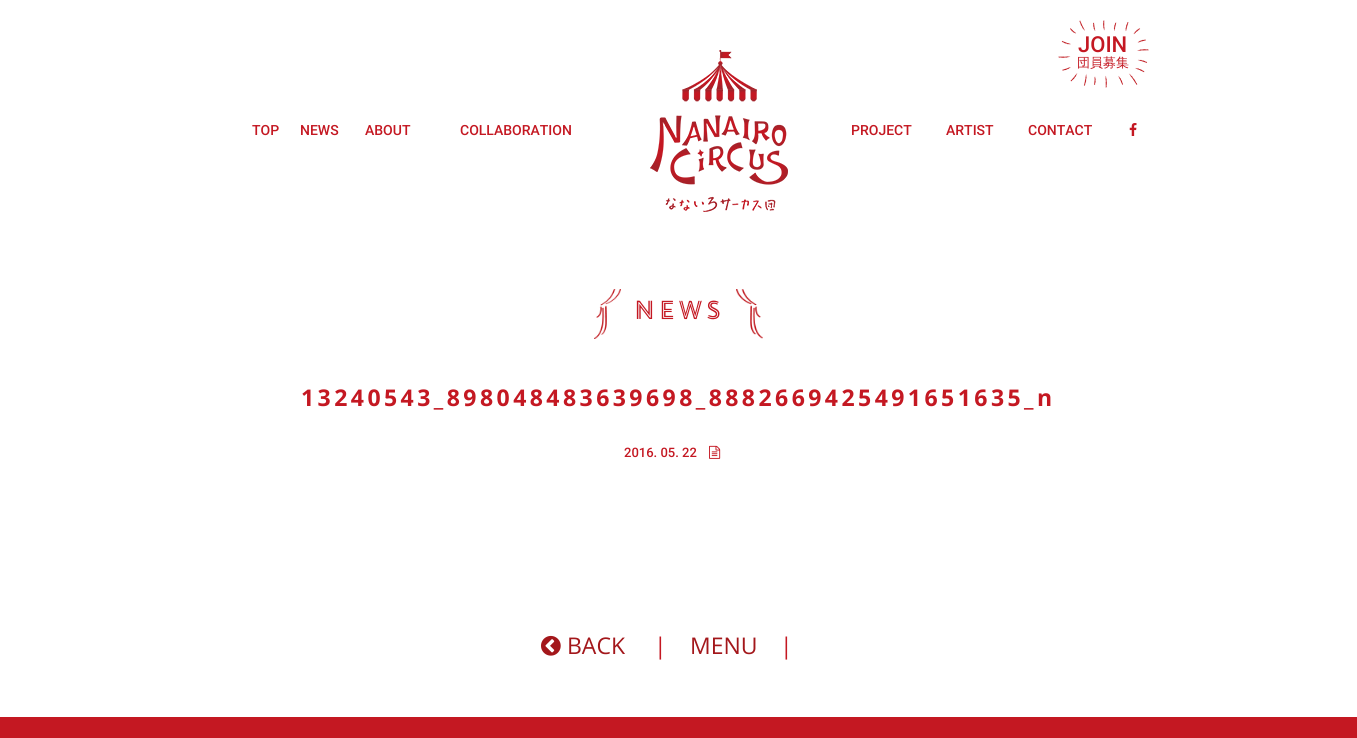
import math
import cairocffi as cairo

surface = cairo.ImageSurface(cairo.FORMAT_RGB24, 1357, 738)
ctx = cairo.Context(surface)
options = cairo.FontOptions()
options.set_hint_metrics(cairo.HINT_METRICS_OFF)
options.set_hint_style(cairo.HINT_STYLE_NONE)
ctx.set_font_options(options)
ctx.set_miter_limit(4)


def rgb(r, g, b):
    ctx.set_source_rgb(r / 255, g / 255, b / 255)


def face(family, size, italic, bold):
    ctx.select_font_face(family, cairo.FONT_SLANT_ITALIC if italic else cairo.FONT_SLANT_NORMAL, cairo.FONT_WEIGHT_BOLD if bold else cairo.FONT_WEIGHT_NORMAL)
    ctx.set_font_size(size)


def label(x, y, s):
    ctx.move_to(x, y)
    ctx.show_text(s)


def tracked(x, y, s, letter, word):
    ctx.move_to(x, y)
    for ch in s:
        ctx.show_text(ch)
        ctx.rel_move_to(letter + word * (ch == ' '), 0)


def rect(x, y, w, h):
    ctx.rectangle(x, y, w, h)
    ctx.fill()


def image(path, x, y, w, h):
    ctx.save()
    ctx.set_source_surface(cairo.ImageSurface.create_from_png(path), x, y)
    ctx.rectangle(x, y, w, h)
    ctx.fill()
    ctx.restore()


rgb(255, 255, 255)
ctx.paint()
image('image0.png', 1058, 20, 91, 68)
face('Roboto Medium', 22, 0, 0)
rgb(196, 24, 34)
label(1078, 52, 'JOIN')
face('WenQuanYi Zen Hei Medium', 13, 0, 0)
label(1077, 67, '団員募集')
face('Roboto Medium', 14, 0, 0)
label(252, 135, 'TOP')
label(300, 135, 'NEWS')
label(365, 135, 'ABOUT')
label(460, 135, 'COLLABORATION')
image('image1.png', 650, 50, 138, 162)
label(851, 135, 'PROJECT')
label(946, 135, 'ARTIST')
label(1028, 135, 'CONTACT')
image('image2.png', 1129, 123, 8, 13)
image('image3.png', 594, 289, 27, 50)
face('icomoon', 23, 0, 0)
label(633, 320, 'NEWS')
image('image4.png', 736, 289, 27, 50)
face('Open Sans', 23, 0, 1)
tracked(301, 406, '13240543_898048483639698_8882669425491651635_n', 3.45, 0)
face('Roboto Medium', 13, 0, 0)
label(624, 457, '2016. 05. 22')
image('image5.png', 709, 445, 12, 14)
image('image6.png', 541, 635, 20, 21)
face('Open Sans', 23, 0, 0)
rgb(163, 23, 27)
label(567, 654, 'BACK')
rgb(196, 24, 34)
label(654, 654, '|')
rgb(163, 23, 27)
label(690, 654, 'MENU')
rgb(196, 24, 34)
label(780, 654, '|')
rect(0, 717, 1357, 21)
surface.write_to_png('render.png')
